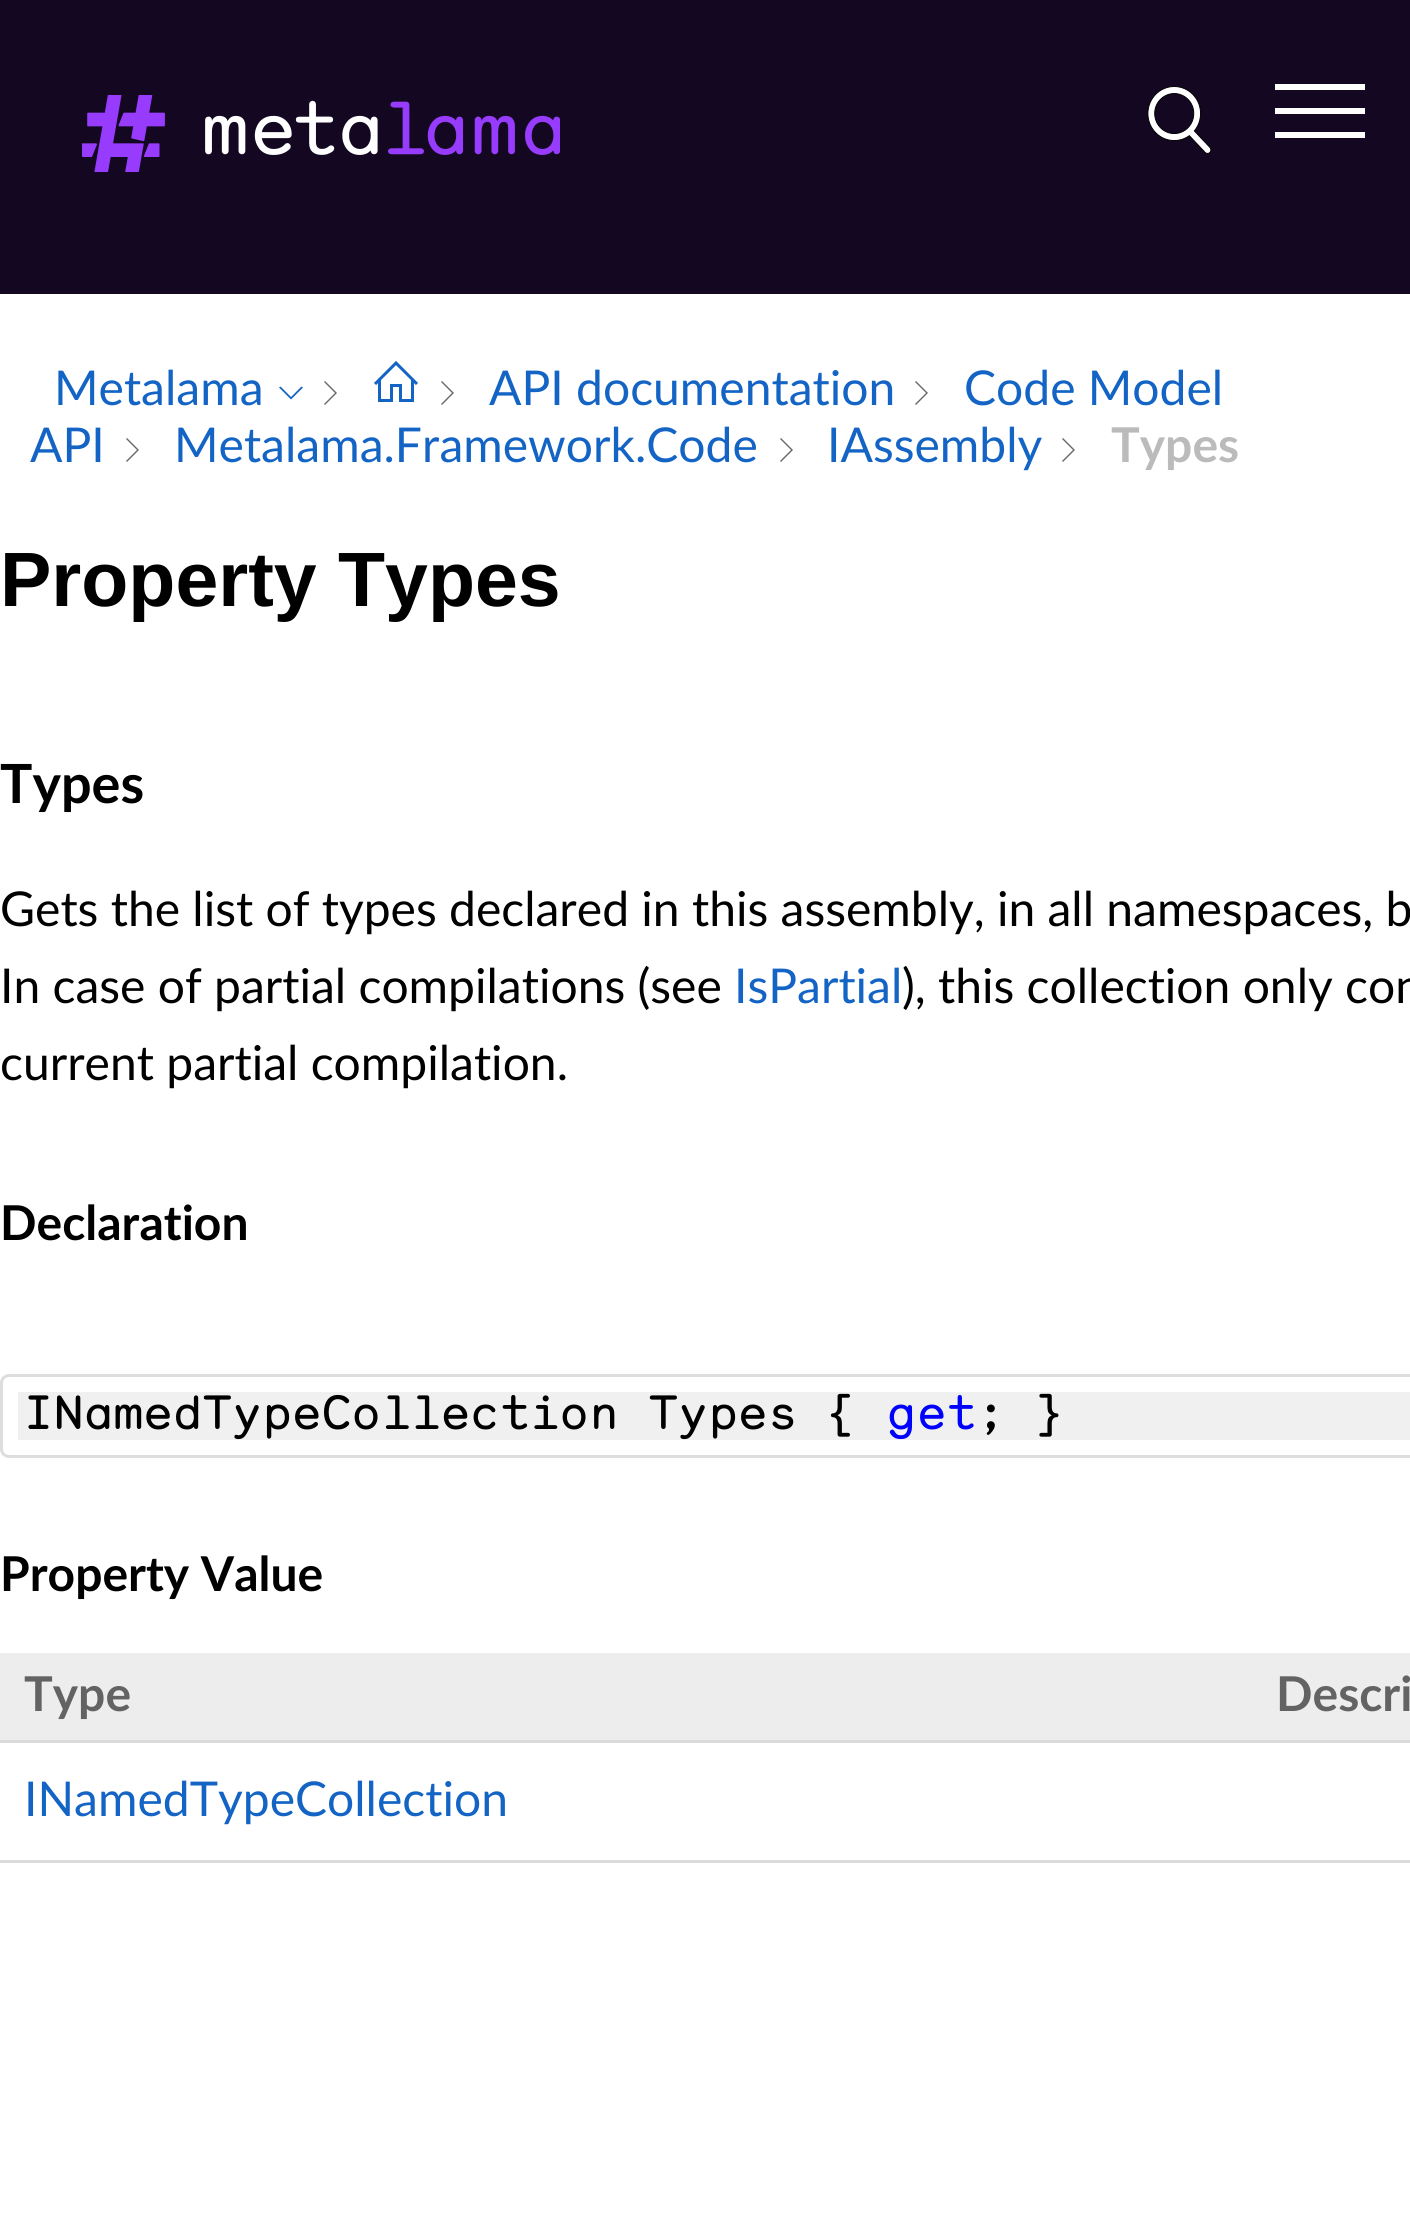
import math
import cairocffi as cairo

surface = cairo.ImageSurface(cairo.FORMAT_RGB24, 1410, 2214)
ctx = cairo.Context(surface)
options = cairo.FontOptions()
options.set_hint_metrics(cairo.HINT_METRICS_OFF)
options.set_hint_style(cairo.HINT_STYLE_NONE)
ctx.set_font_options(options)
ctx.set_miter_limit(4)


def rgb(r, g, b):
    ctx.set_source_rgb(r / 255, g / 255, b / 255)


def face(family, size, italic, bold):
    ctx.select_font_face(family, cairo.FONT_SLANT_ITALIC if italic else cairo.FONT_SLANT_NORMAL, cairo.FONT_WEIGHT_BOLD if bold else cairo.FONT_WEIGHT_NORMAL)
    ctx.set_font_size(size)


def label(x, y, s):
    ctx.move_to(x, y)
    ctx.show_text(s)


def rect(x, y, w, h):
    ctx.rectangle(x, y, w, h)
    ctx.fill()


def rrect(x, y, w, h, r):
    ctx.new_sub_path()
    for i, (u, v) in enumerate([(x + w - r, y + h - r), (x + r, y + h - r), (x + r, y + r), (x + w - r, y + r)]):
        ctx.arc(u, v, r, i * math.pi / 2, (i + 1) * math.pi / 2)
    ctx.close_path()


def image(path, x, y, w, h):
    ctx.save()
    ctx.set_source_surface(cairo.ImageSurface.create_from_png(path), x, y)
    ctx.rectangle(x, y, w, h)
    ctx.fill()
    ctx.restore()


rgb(255, 255, 255)
ctx.paint()
rgb(19, 7, 34)
rect(0, 0, 1410, 294)
image('image0.png', 82, 95, 478, 77)
image('image1.png', 1147, 86, 65, 68)
rgb(255, 255, 255)
rect(1275, 84, 90, 6)
rect(1275, 108, 90, 6)
rect(1275, 132, 90, 6)
face('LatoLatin', 48, 0, 0)
rgb(19, 100, 196)
label(54, 405, 'Metalama')
ctx.new_path()
ctx.move_to(291, 397)
ctx.line_to(301.5, 386.5)
ctx.line_to(303, 387.5)
ctx.line_to(291, 399.5)
ctx.line_to(279, 387.5)
ctx.line_to(280.5, 386.5)
ctx.close_path()
ctx.fill()
rgb(105, 105, 105)
ctx.new_path()
ctx.move_to(324, 404)
ctx.line_to(335, 393)
ctx.line_to(324, 382)
ctx.line_to(325, 381)
ctx.line_to(337, 393)
ctx.line_to(325, 405)
ctx.close_path()
ctx.fill()
image('image2.png', 374, 361, 44, 41)
ctx.new_path()
ctx.move_to(441, 404)
ctx.line_to(452, 393)
ctx.line_to(441, 382)
ctx.line_to(442, 381)
ctx.line_to(454, 393)
ctx.line_to(442, 405)
ctx.close_path()
ctx.fill()
rgb(19, 100, 196)
label(489, 405, 'API documentation')
rgb(105, 105, 105)
ctx.new_path()
ctx.move_to(915, 404)
ctx.line_to(926, 393)
ctx.line_to(915, 382)
ctx.line_to(916, 381)
ctx.line_to(928, 393)
ctx.line_to(916, 405)
ctx.close_path()
ctx.fill()
rgb(19, 100, 196)
label(964, 405, 'Code Model')
label(30, 462, 'API')
rgb(105, 105, 105)
ctx.new_path()
ctx.move_to(126, 461)
ctx.line_to(137, 450)
ctx.line_to(126, 439)
ctx.line_to(127, 438)
ctx.line_to(139, 450)
ctx.line_to(127, 462)
ctx.close_path()
ctx.fill()
rgb(19, 100, 196)
label(174, 462, 'Metalama.Framework.Code')
rgb(105, 105, 105)
ctx.new_path()
ctx.move_to(780, 461)
ctx.line_to(791, 450)
ctx.line_to(780, 439)
ctx.line_to(781, 438)
ctx.line_to(793, 450)
ctx.line_to(781, 462)
ctx.close_path()
ctx.fill()
rgb(19, 100, 196)
label(827, 462, 'IAssembly')
rgb(105, 105, 105)
ctx.new_path()
ctx.move_to(1062, 461)
ctx.line_to(1073, 450)
ctx.line_to(1062, 439)
ctx.line_to(1063, 438)
ctx.line_to(1075, 450)
ctx.line_to(1063, 462)
ctx.close_path()
ctx.fill()
face('LatoLatin', 48, 0, 1)
rgb(187, 187, 187)
label(1111, 462, 'Types')
face('Liberation Sans', 77, 0, 1)
rgb(0, 0, 0)
label(0, 606, 'Property Types')
face('LatoLatin', 54, 0, 1)
label(0, 803, 'Types')
face('LatoLatin', 48, 0, 0)
label(0, 926, 'Gets the list of types declared in this assembly, in all namespaces, b')
label(0, 1003, 'In case of partial compilations (see')
rgb(19, 100, 196)
label(734, 1003, 'IsPartial')
rgb(0, 0, 0)
label(902, 1003, '), this collection only con')
label(0, 1080, 'current partial compilation.')
face('LatoLatin', 48, 0, 1)
label(0, 1240, 'Declaration')
rrect(1.5, 1375.5, 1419, 81, 7.5)
rgb(221, 221, 221)
ctx.set_line_width(3)
ctx.stroke()
rgb(240, 240, 240)
rect(18, 1392, 1392, 48)
face('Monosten', 48, 0, 0)
rgb(0, 0, 0)
label(24, 1429, 'INamedTypeCollection Types {')
rgb(0, 0, 255)
label(887, 1429, 'get')
rgb(0, 0, 0)
label(976, 1429, '; }')
face('LatoLatin', 48, 0, 1)
label(0, 1591, 'Property Value')
rgb(237, 237, 237)
rect(0, 1653, 1410, 87)
rgb(99, 99, 99)
label(24, 1711, 'Type')
rgb(219, 219, 219)
rect(0, 1740, 1410, 3)
rgb(99, 99, 99)
label(1276, 1711, 'Descri')
face('LatoLatin', 48, 0, 0)
rgb(19, 100, 196)
label(24, 1816, 'INamedTypeCollection')
rgb(219, 219, 219)
rect(0, 1860, 1410, 3)
surface.write_to_png('render.png')
